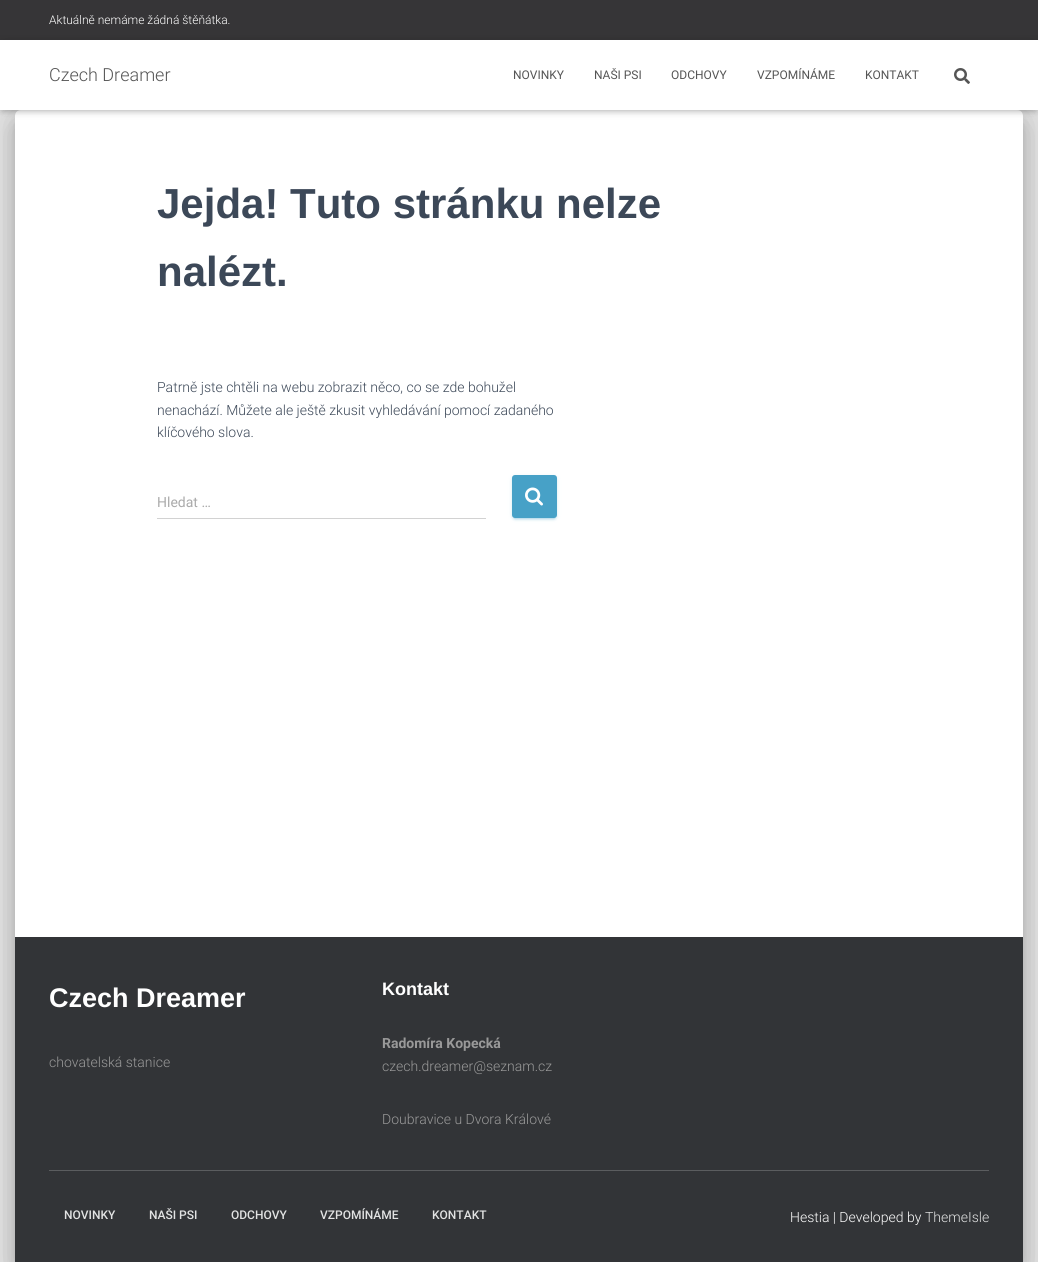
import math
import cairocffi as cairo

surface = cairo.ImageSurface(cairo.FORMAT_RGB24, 1038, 1262)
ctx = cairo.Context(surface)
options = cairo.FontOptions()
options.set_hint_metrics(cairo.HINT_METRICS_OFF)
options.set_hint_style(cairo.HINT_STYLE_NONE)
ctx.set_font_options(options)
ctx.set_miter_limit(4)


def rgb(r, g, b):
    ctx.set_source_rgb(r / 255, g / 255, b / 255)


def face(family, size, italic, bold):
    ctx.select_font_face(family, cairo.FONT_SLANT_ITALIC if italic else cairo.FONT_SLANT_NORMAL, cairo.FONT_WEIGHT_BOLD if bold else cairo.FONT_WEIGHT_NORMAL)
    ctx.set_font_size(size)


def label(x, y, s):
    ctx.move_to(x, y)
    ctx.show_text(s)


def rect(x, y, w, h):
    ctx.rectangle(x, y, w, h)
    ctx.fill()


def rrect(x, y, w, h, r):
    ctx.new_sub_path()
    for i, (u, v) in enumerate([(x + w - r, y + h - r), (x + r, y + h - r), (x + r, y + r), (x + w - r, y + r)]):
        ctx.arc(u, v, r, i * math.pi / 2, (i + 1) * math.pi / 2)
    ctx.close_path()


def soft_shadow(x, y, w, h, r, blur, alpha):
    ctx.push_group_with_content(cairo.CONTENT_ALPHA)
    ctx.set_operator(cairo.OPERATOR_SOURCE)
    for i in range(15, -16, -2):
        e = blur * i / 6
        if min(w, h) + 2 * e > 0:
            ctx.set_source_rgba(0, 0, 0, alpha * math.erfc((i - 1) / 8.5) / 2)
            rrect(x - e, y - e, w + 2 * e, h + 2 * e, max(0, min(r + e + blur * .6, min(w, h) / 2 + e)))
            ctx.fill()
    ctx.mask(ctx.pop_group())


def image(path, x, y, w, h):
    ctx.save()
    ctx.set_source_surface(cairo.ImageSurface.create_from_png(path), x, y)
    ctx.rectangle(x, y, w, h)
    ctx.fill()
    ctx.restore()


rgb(229, 229, 229)
ctx.paint()
rgb(54, 53, 55)
rect(0, 0, 1038, 40)
face('Roboto Light', 12, 0, 0)
rgb(255, 255, 255)
label(49, 24, 'Aktuálně nemáme žádná štěňátka.')
rgb(0, 0, 0)
soft_shadow(20, 123, 998, 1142, 1, 5, 0.2)
soft_shadow(10, 111, 1018, 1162, 11, 15, 0.12)
soft_shadow(13, 124, 1012, 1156, 8, 12, 0.14)
rgb(255, 255, 255)
ctx.new_path()
ctx.move_to(21, 110)
ctx.line_to(1017, 110)
ctx.curve_to(1020.5, 110, 1023, 112.5, 1023, 116)
ctx.line_to(1023, 1262)
ctx.line_to(15, 1262)
ctx.line_to(15, 116)
ctx.curve_to(15, 112.5, 17.5, 110, 21, 110)
ctx.close_path()
ctx.fill()
rgb(0, 0, 0)
soft_shadow(2, 46, 1034, 66, 0, 2.5, 0.1)
soft_shadow(0, 41, 1038, 70, 0, 5, 0.12)
soft_shadow(6, 47, 1026, 58, 0, 5, 0.42)
rgb(255, 255, 255)
rect(0, 40, 1038, 70)
face('Roboto Light', 18, 0, 0)
rgb(85, 85, 85)
label(49, 81, 'Czech Dreamer')
face('Roboto', 12, 0, 0)
label(513, 79, 'NOVINKY')
label(594, 79, 'NAŠI PSI')
label(671, 79, 'ODCHOVY')
label(757, 79, 'VZPOMÍNÁME')
label(865, 79, 'KONTAKT')
image('image0.png', 954, 68, 16, 16)
face('Liberation Sans', 42, 0, 1)
rgb(60, 72, 88)
label(157, 218, 'Jejda! Tuto stránku nelze')
label(157, 286, 'nalézt.')
face('Roboto Light', 14, 0, 0)
label(157, 392, 'Patrně jste chtěli na webu zobrazit něco, co se zde bohužel')
label(157, 415, 'nenachází. Můžete ale ještě zkusit vyhledávání pomocí zadaného')
label(157, 437, 'klíčového slova.')
face('Roboto', 14, 0, 0)
rgb(170, 170, 170)
label(157, 507, 'Hledat …')
rgb(210, 210, 210)
rect(157, 518, 329, 1)
rgb(71, 161, 199)
soft_shadow(512, 476, 45, 43, 3, 2.5, 0.12)
soft_shadow(514, 480, 41, 39, 1, 0.5, 0.2)
soft_shadow(512, 477, 45, 43, 3, 1, 0.14)
rgb(71, 161, 199)
rrect(512, 475, 45, 43, 3)
ctx.fill()
image('image1.png', 525, 487, 18, 19)
rgb(50, 52, 55)
rect(15, 937, 1008, 325)
face('Liberation Sans', 27, 0, 1)
rgb(255, 255, 255)
label(49, 1007, 'Czech Dreamer')
face('Roboto Light', 14, 0, 0)
rgb(153, 153, 153)
label(49, 1067, 'chovatelská stanice')
face('Liberation Sans', 18, 0, 1)
rgb(255, 255, 255)
label(382, 995, 'Kontakt')
face('Roboto', 14, 0, 1)
rgb(153, 153, 153)
label(382, 1048, 'Radomíra Kopecká')
face('Roboto Light', 14, 0, 0)
label(382, 1071, 'czech.dreamer@seznam.cz')
label(382, 1124, 'Doubravice u Dvora Králové')
rgb(91, 93, 95)
rect(49, 1170, 940, 1)
face('Roboto Medium', 12, 0, 0)
rgb(226, 227, 227)
label(64, 1219, 'NOVINKY')
label(149, 1219, 'NAŠI PSI')
label(231, 1219, 'ODCHOVY')
label(320, 1219, 'VZPOMÍNÁME')
label(432, 1219, 'KONTAKT')
face('Roboto Light', 14, 0, 0)
rgb(255, 255, 255)
label(790, 1222, 'Hestia | Developed by')
rgb(226, 227, 227)
label(925, 1222, 'ThemeIsle')
surface.write_to_png('render.png')
